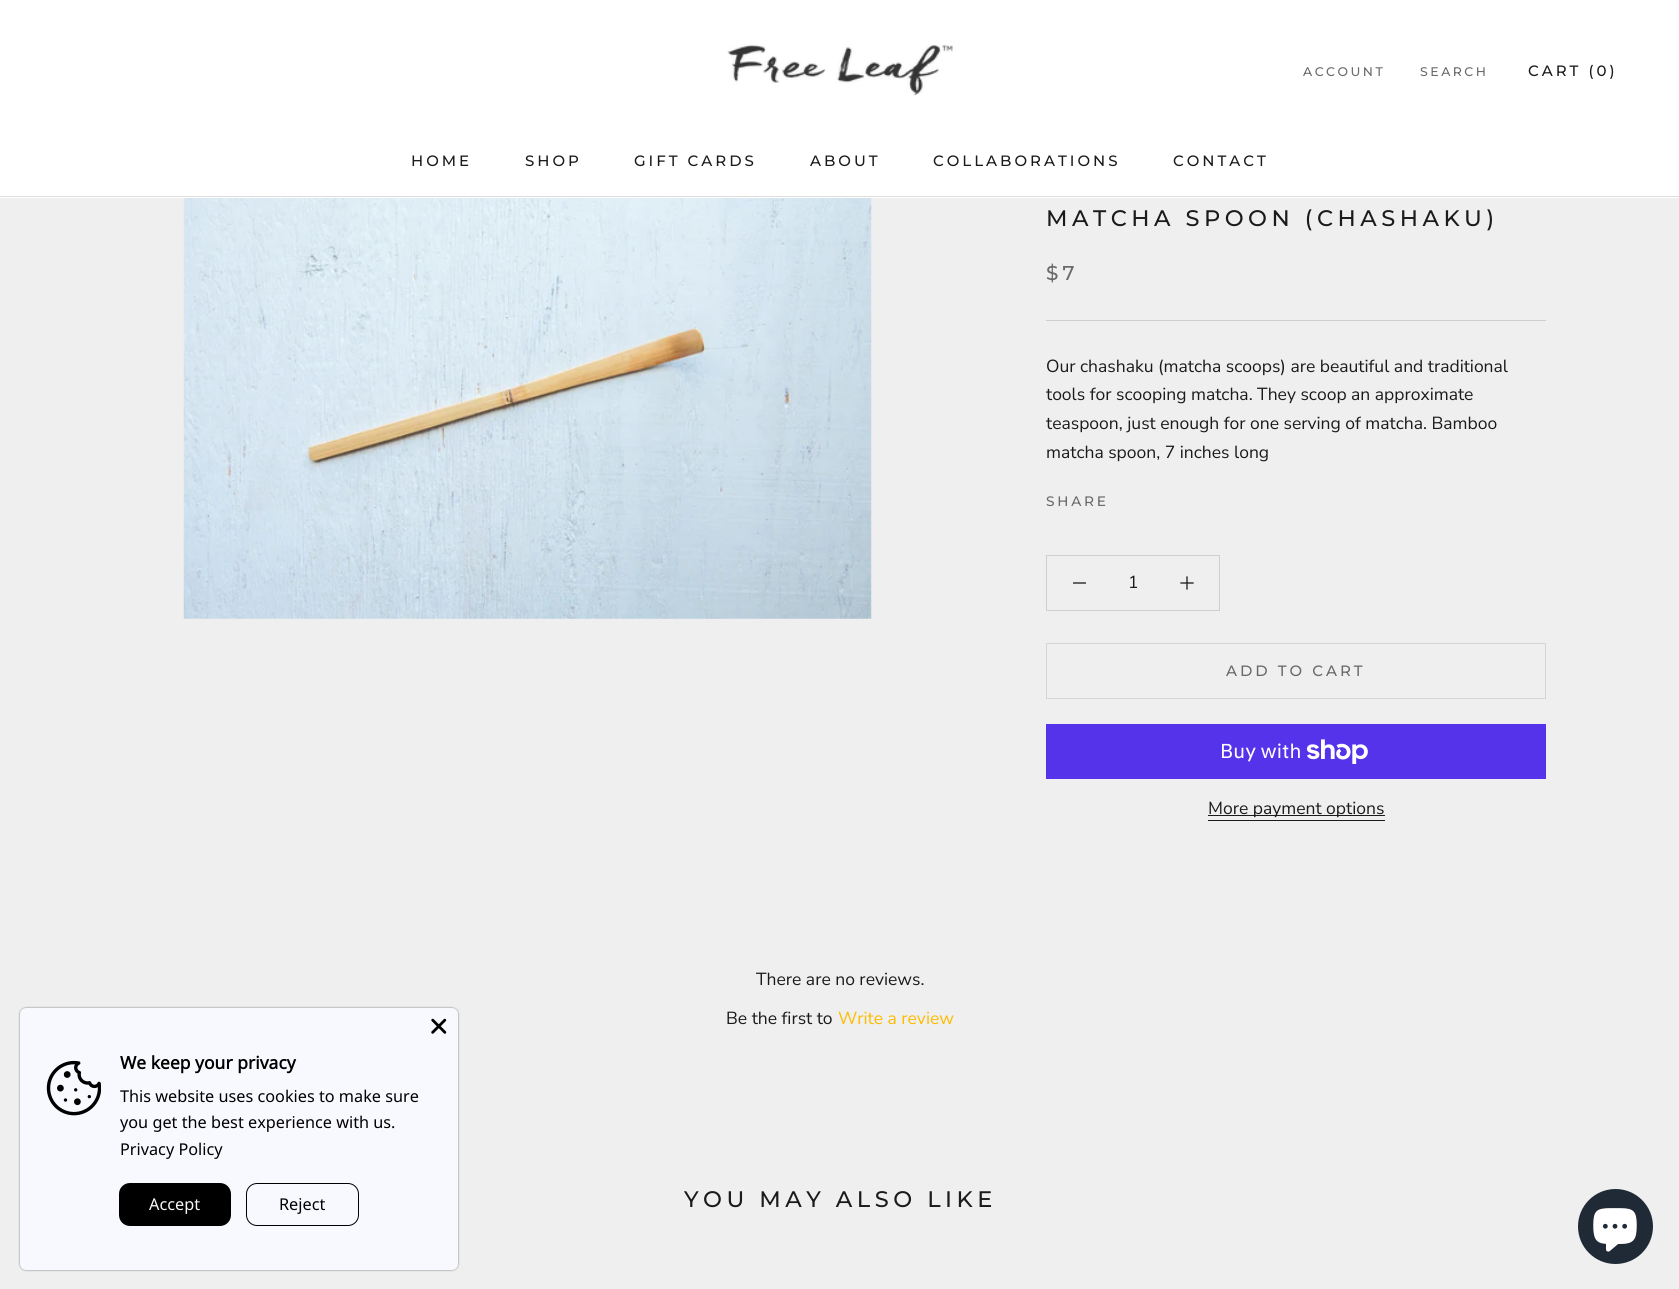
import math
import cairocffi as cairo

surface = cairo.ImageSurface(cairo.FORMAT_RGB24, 1679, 1289)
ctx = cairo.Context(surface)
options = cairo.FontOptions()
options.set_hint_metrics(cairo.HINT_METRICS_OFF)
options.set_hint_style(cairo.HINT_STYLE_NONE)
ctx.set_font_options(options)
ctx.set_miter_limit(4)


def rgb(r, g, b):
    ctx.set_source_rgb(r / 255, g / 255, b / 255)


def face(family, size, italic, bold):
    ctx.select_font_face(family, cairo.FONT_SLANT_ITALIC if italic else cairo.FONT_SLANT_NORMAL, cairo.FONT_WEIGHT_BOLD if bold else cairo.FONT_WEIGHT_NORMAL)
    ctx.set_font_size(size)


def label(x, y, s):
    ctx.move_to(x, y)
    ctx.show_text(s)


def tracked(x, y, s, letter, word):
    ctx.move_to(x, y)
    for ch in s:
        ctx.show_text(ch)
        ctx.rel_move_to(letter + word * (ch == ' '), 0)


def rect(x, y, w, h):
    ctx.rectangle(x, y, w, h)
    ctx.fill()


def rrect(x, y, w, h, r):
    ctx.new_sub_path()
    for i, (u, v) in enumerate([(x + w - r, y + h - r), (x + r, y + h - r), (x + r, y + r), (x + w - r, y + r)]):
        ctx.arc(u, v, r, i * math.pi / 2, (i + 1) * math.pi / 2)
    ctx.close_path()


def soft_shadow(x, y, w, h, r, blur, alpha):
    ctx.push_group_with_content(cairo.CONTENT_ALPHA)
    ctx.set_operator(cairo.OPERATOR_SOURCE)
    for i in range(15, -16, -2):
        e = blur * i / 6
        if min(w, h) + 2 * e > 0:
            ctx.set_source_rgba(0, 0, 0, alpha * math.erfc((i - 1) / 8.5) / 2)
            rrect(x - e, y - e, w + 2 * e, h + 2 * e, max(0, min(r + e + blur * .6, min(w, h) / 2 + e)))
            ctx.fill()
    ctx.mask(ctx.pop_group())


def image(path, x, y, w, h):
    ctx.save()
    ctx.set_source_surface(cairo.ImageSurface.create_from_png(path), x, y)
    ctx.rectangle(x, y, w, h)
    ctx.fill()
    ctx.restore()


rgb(239, 239, 239)
ctx.paint()
rgb(0, 0, 0)
soft_shadow(20, 1008, 438, 262, 6, 1, 0.5)
rgb(248, 248, 255)
rrect(20, 1008, 438, 262, 6)
ctx.fill()
image('image0.png', 431, 1018, 16, 16)
image('image1.png', 46, 1060, 55, 56)
face('Noto Sans', 17.5, 0, 1)
rgb(0, 0, 0)
label(120, 1069, 'We keep your privacy')
face('Noto Sans', 16.25, 0, 0)
label(120, 1102, 'This website uses cookies to make sure')
label(120, 1128, 'you get the best experience with us.')
label(120, 1155, 'Privacy Policy')
rrect(119, 1183, 112, 43, 11)
ctx.fill()
rgb(248, 248, 248)
label(149, 1210, 'Accept')
rrect(246.5, 1183.5, 112, 42, 10.5)
rgb(0, 0, 0)
ctx.set_line_width(1)
ctx.stroke()
label(279, 1210, 'Reject')
rgb(255, 255, 255)
rect(0, 0, 1679, 198)
rgb(221, 221, 221)
rect(0, 196, 1679, 1)
image('image2.png', 727, 44, 226, 52)
face('Montserrat Thin', 12.5, 0, 0)
rgb(106, 106, 106)
tracked(1303, 76, 'ACCOUNT', 2.5, 0)
tracked(1420, 76, 'SEARCH', 2.5, 0)
face('Montserrat Thin', 15, 0, 0)
rgb(28, 27, 27)
tracked(1528, 76, 'CART (0)', 3, 0)
tracked(411, 166, 'HOME', 3, 0)
tracked(525, 166, 'SHOP', 3, 0)
tracked(634, 166, 'GIFT CARDS', 3, 0)
tracked(810, 166, 'ABOUT', 3, 0)
tracked(933, 166, 'COLLABORATIONS', 3, 0)
tracked(1173, 166, 'CONTACT', 3, 0)
image('image3.png', 183, 198, 689, 421)
face('Montserrat Thin', 22.5, 0, 0)
tracked(1046, 226, 'MATCHA SPOON (CHASHAKU)', 4.5, 0)
face('Montserrat Thin', 20, 0, 0)
rgb(106, 106, 106)
tracked(1046, 280, '$7', 4, 0)
rgb(207, 207, 207)
rect(1046, 320, 500, 1)
face('Nunito Sans', 17.5, 0, 0)
rgb(28, 27, 27)
label(1046, 372, 'Our chashaku (matcha scoops) are beautiful and traditional')
label(1046, 400, 'tools for scooping matcha. They scoop an approximate')
label(1046, 429, 'teaspoon, just enough for one serving of matcha. Bamboo')
label(1046, 458, 'matcha spoon, 7 inches long')
face('Montserrat Thin', 13.75, 0, 0)
rgb(106, 106, 106)
tracked(1046, 506, 'SHARE', 2.75, 0)
ctx.rectangle(1046.5, 555.5, 173, 55)
rgb(207, 207, 207)
ctx.stroke()
ctx.save()
ctx.rectangle(1073, 576, 13, 14)
ctx.clip()
ctx.new_path()
ctx.move_to(1073.5, 583)
ctx.line_to(1085.5, 583)
rgb(28, 27, 27)
ctx.set_line_width(1.3)
ctx.set_line_cap(cairo.LINE_CAP_SQUARE)
ctx.stroke()
ctx.restore()
face('Nunito Sans', 17.5, 0, 0)
rgb(28, 27, 27)
label(1128, 588, '1')
ctx.new_path()
ctx.move_to(1187, 577)
ctx.line_to(1187, 589)
ctx.move_to(1181, 583)
ctx.line_to(1193, 583)
ctx.set_line_width(1.3)
ctx.set_line_cap(cairo.LINE_CAP_SQUARE)
ctx.stroke()
ctx.rectangle(1046.5, 643.5, 499, 55)
rgb(212, 212, 212)
ctx.set_line_width(1)
ctx.set_line_cap(cairo.LINE_CAP_BUTT)
ctx.stroke()
face('Montserrat Thin', 15, 0, 0)
rgb(106, 106, 106)
tracked(1226, 676, 'ADD TO CART', 3, 0)
rgb(84, 51, 235)
rect(1046, 724, 500, 55)
face('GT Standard', 20, 0, 0)
rgb(255, 255, 255)
label(1220, 758, 'Buy with')
image('image4.png', 1306, 739, 62, 25)
rgb(28, 27, 27)
rect(1208, 815, 177, 1)
face('Nunito Sans', 17.5, 0, 0)
label(1208, 814, 'More payment options')
rect(1208, 820, 177, 1)
label(756, 985, 'There are no reviews.')
label(726, 1024, 'Be the first to')
rgb(253, 188, 0)
label(838, 1024, 'Write a review')
face('Montserrat Thin', 22.5, 0, 0)
rgb(28, 27, 27)
tracked(684, 1207, 'YOU MAY ALSO LIKE', 4.5, 0)
rgb(32, 42, 54)
ctx.new_path()
ctx.arc(1615.5, 1226.5, 37.5, 0, 2 * math.pi)
ctx.fill()
image('image5.png', 1593, 1208, 44, 44)
surface.write_to_png('render.png')
